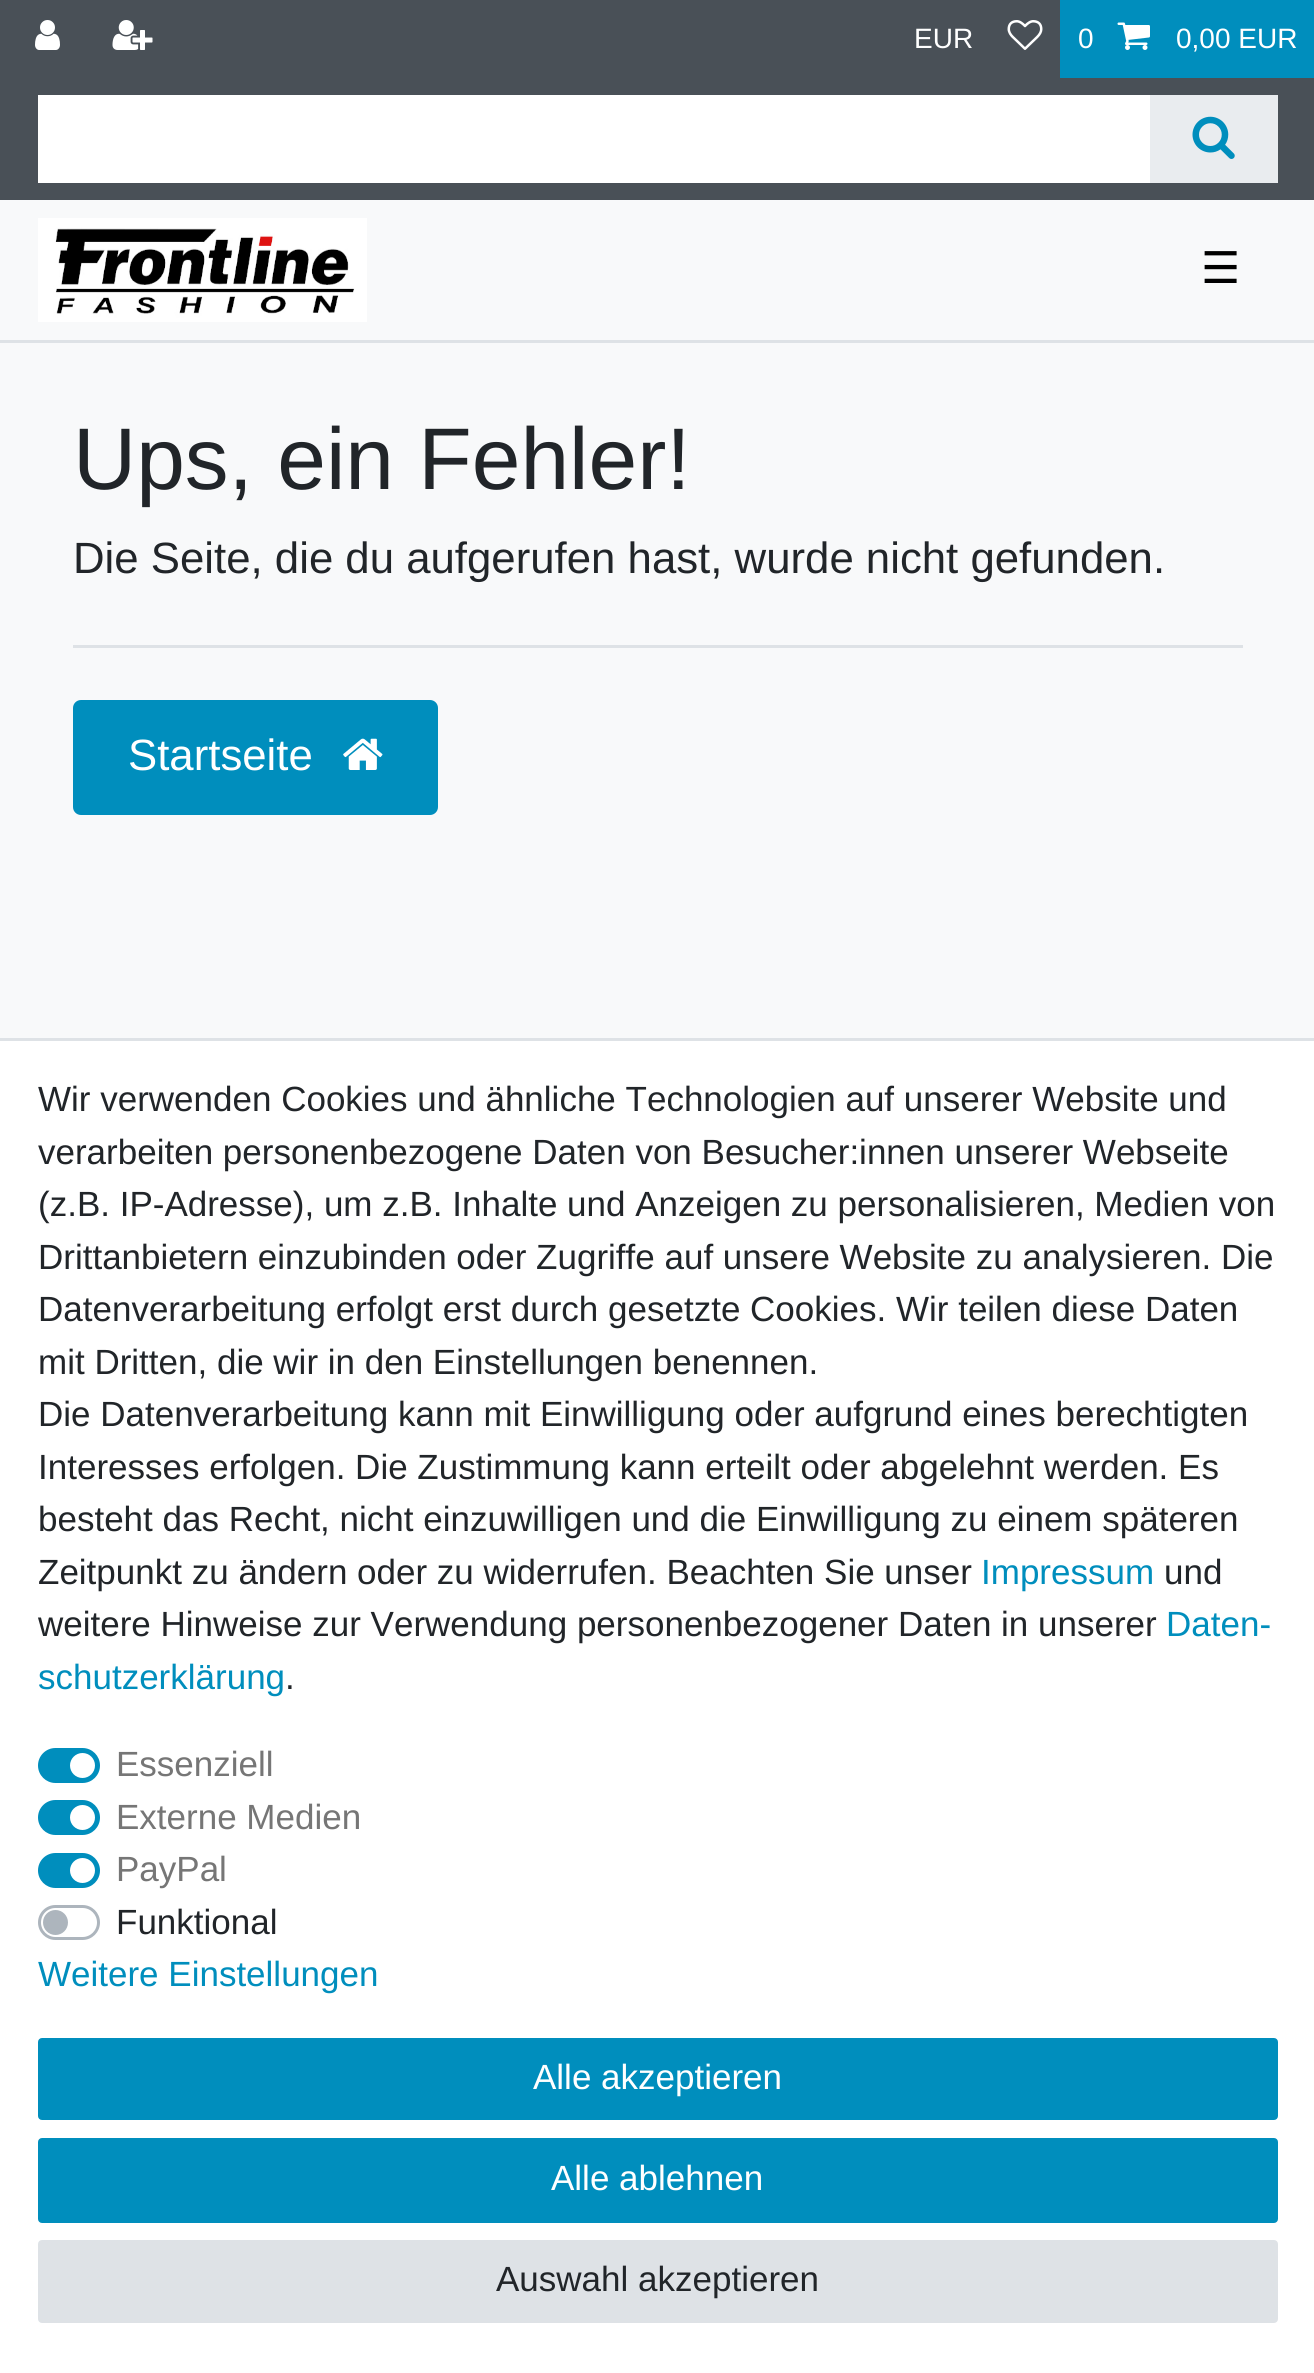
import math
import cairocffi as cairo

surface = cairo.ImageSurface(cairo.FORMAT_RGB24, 1314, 2373)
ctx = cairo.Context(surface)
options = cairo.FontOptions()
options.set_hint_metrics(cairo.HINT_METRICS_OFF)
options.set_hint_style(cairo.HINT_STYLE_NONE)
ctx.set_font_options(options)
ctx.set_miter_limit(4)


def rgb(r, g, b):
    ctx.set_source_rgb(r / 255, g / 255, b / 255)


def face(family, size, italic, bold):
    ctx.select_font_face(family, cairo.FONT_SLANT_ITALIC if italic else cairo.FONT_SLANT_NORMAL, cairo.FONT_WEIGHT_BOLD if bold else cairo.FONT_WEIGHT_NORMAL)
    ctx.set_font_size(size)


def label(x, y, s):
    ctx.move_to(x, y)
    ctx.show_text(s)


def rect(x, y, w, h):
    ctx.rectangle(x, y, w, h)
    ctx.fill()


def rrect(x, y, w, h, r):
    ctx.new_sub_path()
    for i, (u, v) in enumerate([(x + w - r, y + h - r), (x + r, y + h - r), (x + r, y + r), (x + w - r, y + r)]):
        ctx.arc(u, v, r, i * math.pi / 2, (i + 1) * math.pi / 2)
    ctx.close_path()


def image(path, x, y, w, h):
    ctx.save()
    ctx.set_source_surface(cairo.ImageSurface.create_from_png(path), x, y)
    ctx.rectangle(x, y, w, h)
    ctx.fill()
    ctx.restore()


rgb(248, 249, 250)
ctx.paint()
rgb(73, 80, 87)
rect(0, 0, 1314, 200)
image('image0.png', 35, 20, 25, 30)
image('image1.png', 112, 20, 41, 30)
face('Liberation Sans', 28, 0, 0)
rgb(255, 255, 255)
label(914, 48, 'EUR')
image('image2.png', 1007, 20, 36, 30)
rgb(0, 142, 189)
rect(1060, 0, 254, 78)
rgb(255, 255, 255)
label(1078, 48, '0')
image('image3.png', 1117, 22, 33, 28)
label(1176, 48, '0,00 EUR')
rect(38, 95, 1112, 88)
rgb(233, 236, 239)
rect(1150, 95, 128, 88)
image('image4.png', 1192, 116, 43, 43)
rgb(222, 226, 230)
rect(0, 340, 1314, 3)
image('image5.png', 38, 218, 329, 104)
face('DejaVu Sans', 43.75, 0, 0)
rgb(0, 0, 0)
label(1201, 283, '☰')
face('Liberation Sans', 87.5, 0, 0)
rgb(33, 37, 41)
label(73, 489, 'Ups, ein Fehler!')
face('Liberation Sans', 43.75, 0, 0)
label(73, 573, 'Die Seite, die du aufgerufen hast, wurde nicht gefunden.')
rgb(222, 226, 230)
rect(73, 645, 1170, 3)
rgb(0, 142, 189)
rrect(74.5, 701.5, 362, 112, 6.5)
ctx.fill_preserve()
ctx.set_line_width(3)
ctx.stroke()
rgb(255, 255, 255)
label(128, 770, 'Startseite')
image('image6.png', 343, 738, 40, 32)
rect(0, 1041, 1314, 1332)
rgb(222, 226, 230)
rect(0, 1038, 1314, 3)
face('Liberation Sans', 35, 0, 0)
rgb(33, 37, 41)
label(38, 1111, 'Wir verwenden Cookies und ähnliche Technologien auf unserer Website und')
label(38, 1164, 'verarbeiten personenbezogene Daten von Besucher:innen unserer Webseite')
label(38, 1216, '(z.B. IP-Adresse), um z.B. Inhalte und Anzeigen zu personalisieren, Medien von')
label(38, 1269, 'Drittanbietern einzubinden oder Zugriffe auf unsere Website zu analysieren. Die')
label(38, 1321, 'Datenverarbeitung erfolgt erst durch gesetzte Cookies. Wir teilen diese Daten')
label(38, 1374, 'mit Dritten, die wir in den Einstellungen benennen.')
label(38, 1426, 'Die Datenverarbeitung kann mit Einwilligung oder aufgrund eines berechtigten')
label(38, 1479, 'Interesses erfolgen. Die Zustimmung kann erteilt oder abgelehnt werden. Es')
label(38, 1531, 'besteht das Recht, nicht einzuwilligen und die Einwilligung zu einem späteren')
label(38, 1584, 'Zeitpunkt zu ändern oder zu widerrufen. Beachten Sie unser')
rgb(0, 142, 189)
label(981, 1584, 'Impressum')
rgb(33, 37, 41)
label(1164, 1584, 'und')
label(38, 1636, 'weitere Hinweise zur Verwendung personenbezogener Daten in unserer')
rgb(0, 142, 189)
label(1166, 1636, 'Daten-')
label(38, 1689, 'schutzerklärung')
rgb(33, 37, 41)
label(285, 1689, '.')
rgb(0, 142, 189)
rrect(39.5, 1749.5, 59, 32, 16)
ctx.fill_preserve()
ctx.stroke()
rgb(118, 118, 118)
label(116, 1776, 'Essenziell')
rgb(255, 255, 255)
ctx.new_path()
ctx.arc(82.5, 1765.5, 12.5, 0, 2 * math.pi)
ctx.fill()
rgb(0, 142, 189)
rrect(39.5, 1801.5, 59, 32, 16)
ctx.fill_preserve()
ctx.stroke()
rgb(118, 118, 118)
label(116, 1829, 'Externe Medien')
rgb(255, 255, 255)
ctx.new_path()
ctx.arc(82.5, 1817.5, 12.5, 0, 2 * math.pi)
ctx.fill()
rgb(0, 142, 189)
rrect(39.5, 1854.5, 59, 32, 16)
ctx.fill_preserve()
ctx.stroke()
rgb(118, 118, 118)
label(116, 1881, 'PayPal')
rgb(255, 255, 255)
ctx.new_path()
ctx.arc(82.5, 1870.5, 12.5, 0, 2 * math.pi)
ctx.fill()
rrect(39.5, 1906.5, 59, 32, 16)
rgb(173, 181, 189)
ctx.stroke()
rgb(33, 37, 41)
label(116, 1934, 'Funktional')
rgb(173, 181, 189)
ctx.new_path()
ctx.arc(55.5, 1922.5, 12.5, 0, 2 * math.pi)
ctx.fill()
rgb(0, 142, 189)
label(38, 1986, 'Weitere Einstellungen')
rrect(39.5, 2039.5, 1237, 79, 2.5)
ctx.fill_preserve()
ctx.stroke()
rgb(255, 255, 255)
label(533, 2089, 'Alle akzeptieren')
rgb(0, 142, 189)
rrect(39.5, 2139.5, 1237, 82, 2.5)
ctx.fill_preserve()
ctx.stroke()
rgb(255, 255, 255)
label(551, 2190, 'Alle ablehnen')
rgb(222, 226, 230)
rrect(39.5, 2241.5, 1237, 80, 2.5)
ctx.fill_preserve()
ctx.stroke()
rgb(33, 37, 41)
label(496, 2291, 'Auswahl akzeptieren')
surface.write_to_png('render.png')
